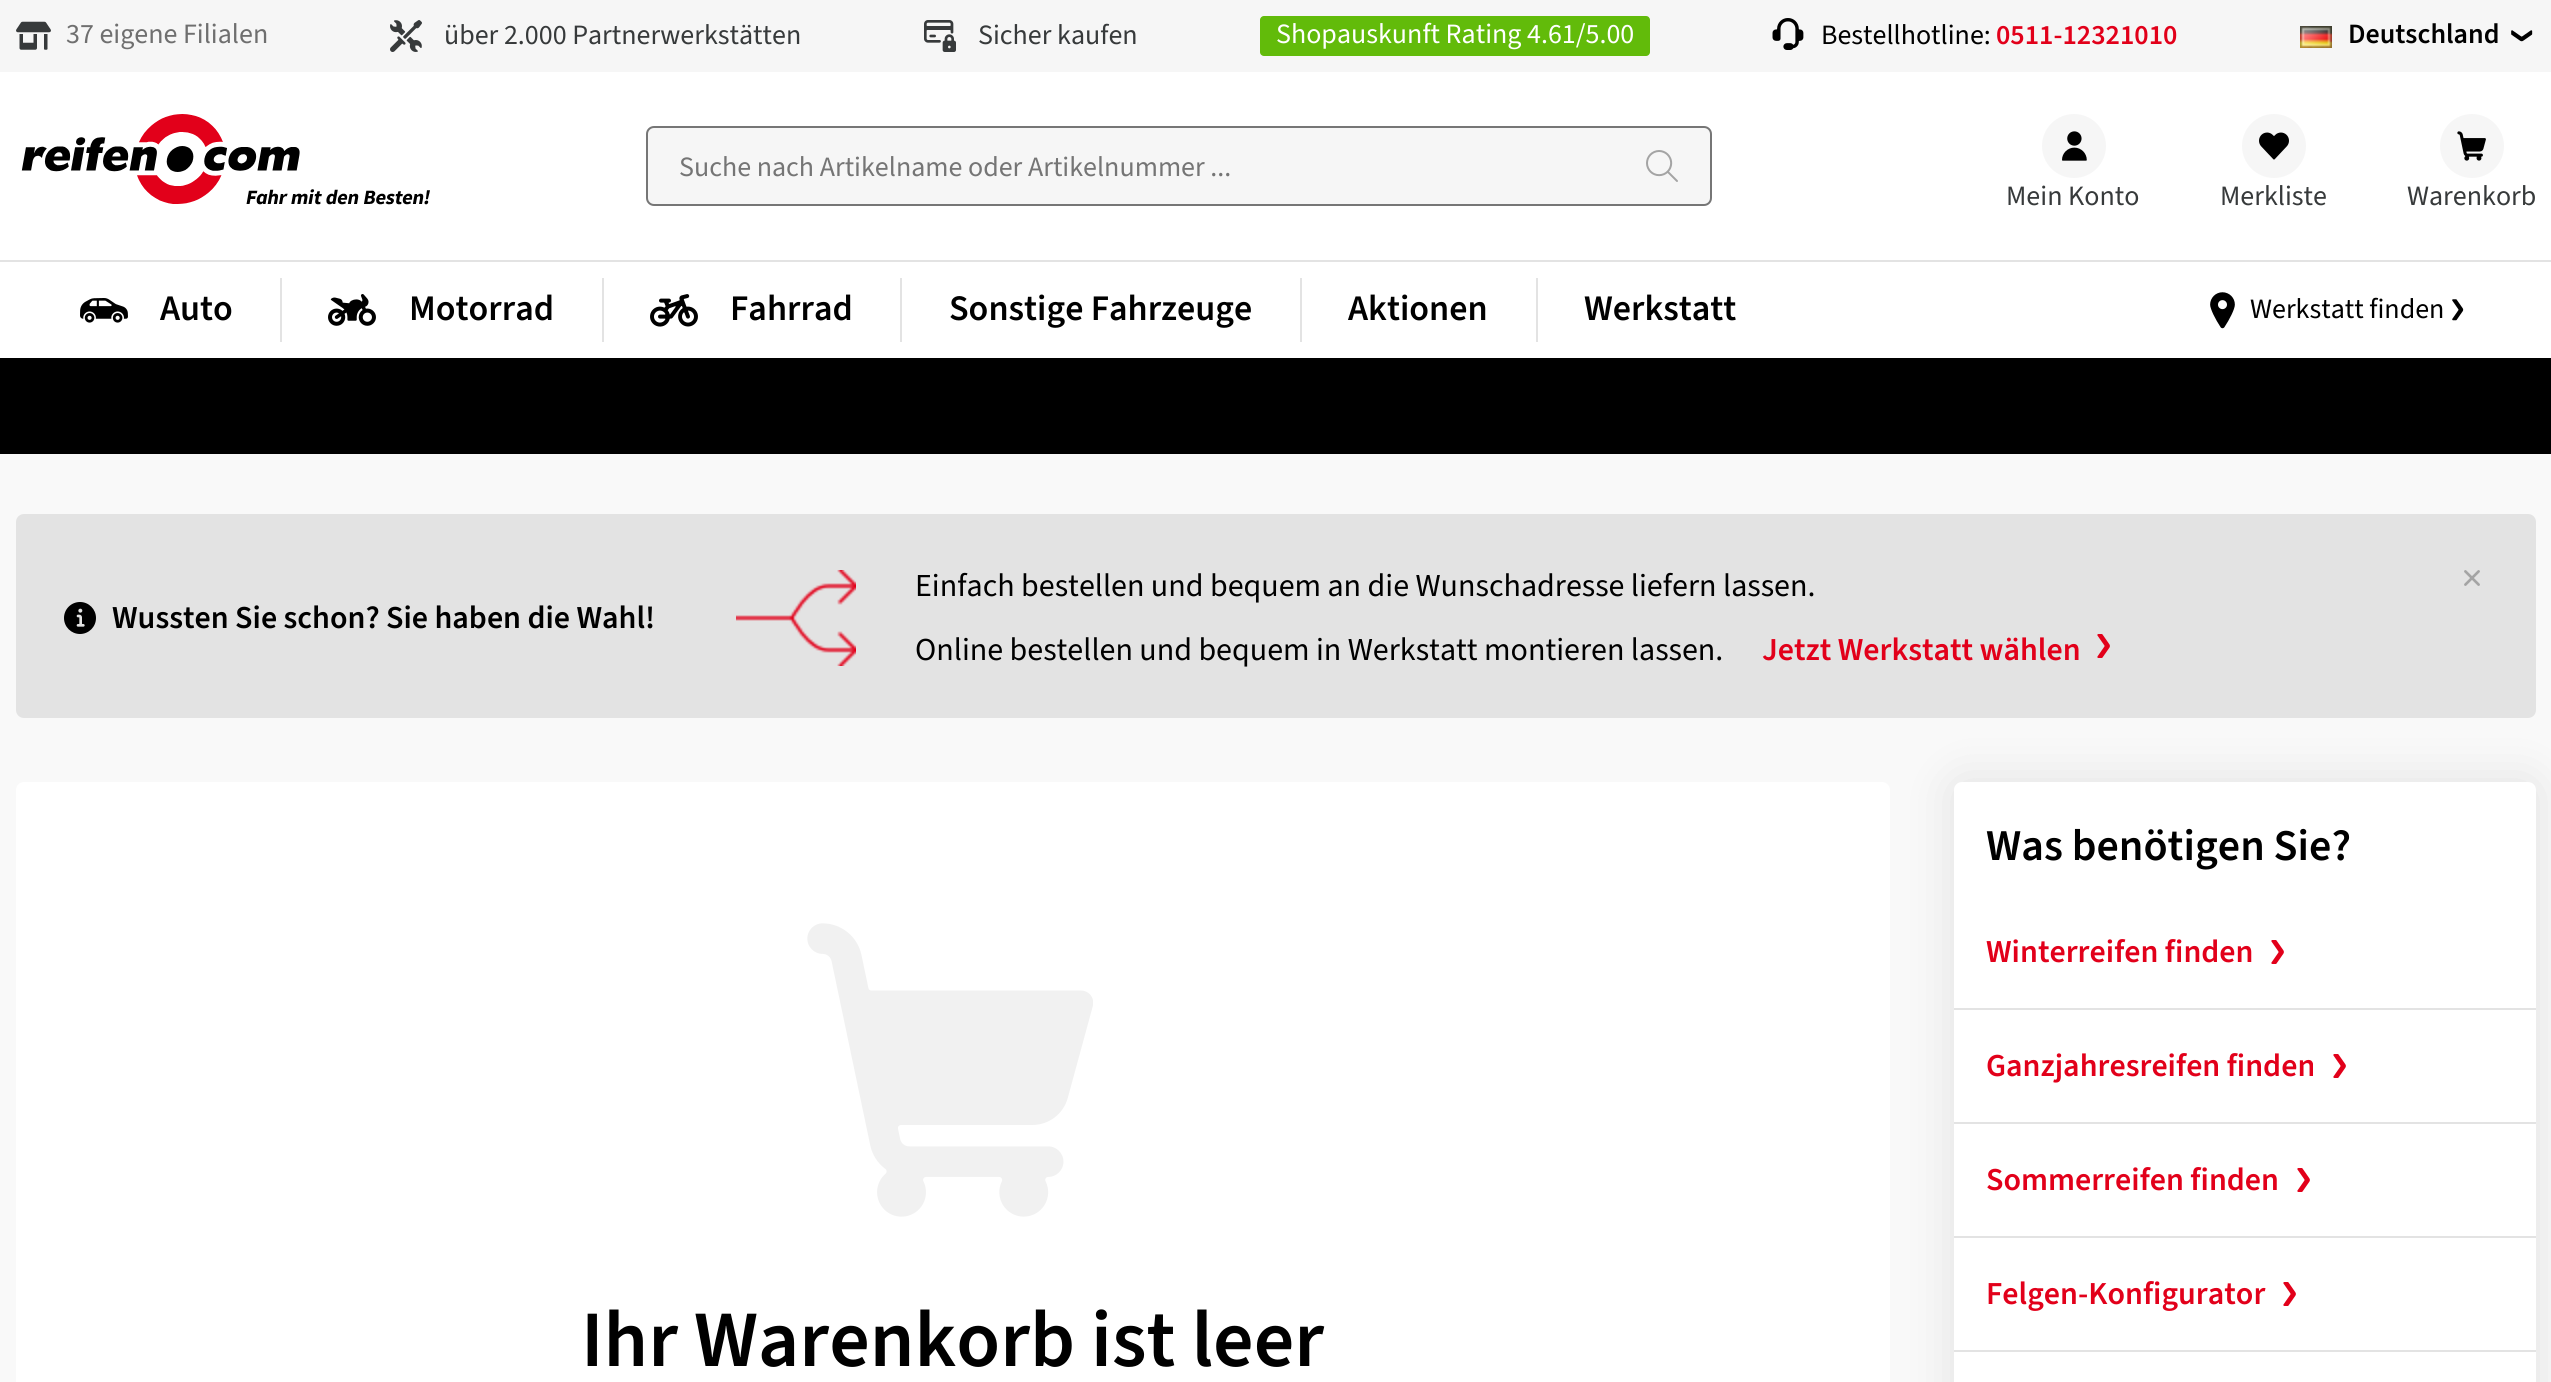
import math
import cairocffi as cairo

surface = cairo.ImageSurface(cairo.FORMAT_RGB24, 2551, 1382)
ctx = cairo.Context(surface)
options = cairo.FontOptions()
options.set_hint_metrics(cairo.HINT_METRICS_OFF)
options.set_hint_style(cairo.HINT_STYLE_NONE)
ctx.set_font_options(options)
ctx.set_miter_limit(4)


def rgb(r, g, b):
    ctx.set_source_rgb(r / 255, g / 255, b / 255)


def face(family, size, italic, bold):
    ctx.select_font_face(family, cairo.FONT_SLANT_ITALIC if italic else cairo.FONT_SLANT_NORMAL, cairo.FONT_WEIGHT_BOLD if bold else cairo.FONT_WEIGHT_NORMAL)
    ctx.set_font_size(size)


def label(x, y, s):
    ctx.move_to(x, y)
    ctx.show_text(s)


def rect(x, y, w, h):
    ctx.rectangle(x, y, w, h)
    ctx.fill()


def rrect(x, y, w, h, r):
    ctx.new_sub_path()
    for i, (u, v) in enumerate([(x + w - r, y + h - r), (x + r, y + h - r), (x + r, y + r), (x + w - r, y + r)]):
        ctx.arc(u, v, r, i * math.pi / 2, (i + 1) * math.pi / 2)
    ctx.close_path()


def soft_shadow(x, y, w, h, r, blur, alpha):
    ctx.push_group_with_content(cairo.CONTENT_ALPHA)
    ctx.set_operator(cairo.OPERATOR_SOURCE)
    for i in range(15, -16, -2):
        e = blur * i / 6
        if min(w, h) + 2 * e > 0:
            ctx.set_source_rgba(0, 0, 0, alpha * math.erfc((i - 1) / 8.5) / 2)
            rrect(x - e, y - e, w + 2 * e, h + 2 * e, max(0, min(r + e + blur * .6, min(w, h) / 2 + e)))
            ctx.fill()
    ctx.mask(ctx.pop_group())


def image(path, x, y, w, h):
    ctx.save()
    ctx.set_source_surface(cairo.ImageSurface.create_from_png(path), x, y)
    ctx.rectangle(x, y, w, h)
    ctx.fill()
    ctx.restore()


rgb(255, 255, 255)
ctx.paint()
rgb(246, 246, 246)
rect(0, 0, 2551, 72)
image('image0.png', 16, 21, 35, 29)
face('Source Sans 3', 28, 0, 0)
rgb(111, 111, 111)
label(66, 43, '37 eigene Filialen')
image('image1.png', 390, 20, 32, 32)
rgb(55, 58, 59)
label(444, 44, 'über 2.000 Partnerwerkstätten')
image('image2.png', 924, 20, 32, 32)
label(978, 44, 'Sicher kaufen')
rgb(98, 187, 10)
rrect(1260, 16, 390, 40, 4)
ctx.fill()
rgb(255, 255, 255)
label(1276, 43, 'Shopauskunft Rating 4.61/5.00')
image('image3.png', 1772, 18, 32, 32)
rgb(0, 0, 0)
label(1821, 44, 'Bestellhotline:')
face('Source Sans 3 SemiBold', 28, 0, 0)
rgb(226, 0, 26)
label(1996, 44, '0511-12321010')
image('image4.png', 2300, 26, 32, 22)
rgb(0, 0, 0)
label(2348, 43, 'Deutschland')
image('image5.png', 2511, 30, 22, 12)
image('image6.png', 21, 114, 409, 91)
rgb(246, 246, 246)
rrect(646, 126, 1066, 80, 8)
ctx.fill()
image('image7.png', 1646, 150, 32, 32)
rrect(647, 127, 1064, 78, 7)
rgb(118, 118, 118)
ctx.stroke()
face('Source Sans 3', 28, 0, 0)
rgb(117, 117, 117)
label(679, 176, 'Suche nach Artikelname oder Artikelnummer ...')
rgb(246, 246, 246)
ctx.new_path()
ctx.arc(2074, 146, 32, 0, 2 * math.pi)
ctx.fill()
image('image8.png', 2062, 131, 25, 30)
rgb(55, 58, 59)
label(2006, 205, 'Mein Konto')
rgb(246, 246, 246)
ctx.new_path()
ctx.arc(2274, 146, 32, 0, 2 * math.pi)
ctx.fill()
image('image9.png', 2259, 132, 30, 28)
rgb(55, 58, 59)
label(2220, 205, 'Merkliste')
rgb(246, 246, 246)
ctx.new_path()
ctx.arc(2472, 146, 32, 0, 2 * math.pi)
ctx.fill()
image('image10.png', 2457, 131, 29, 30)
rgb(55, 58, 59)
label(2407, 205, 'Warenkorb')
rgb(227, 227, 227)
rect(0, 260, 2551, 2)
image('image11.png', 80, 298, 48, 25)
face('Source Sans 3 SemiBold', 36, 0, 0)
rgb(0, 0, 0)
label(160, 320, 'Auto')
rgb(227, 227, 227)
rect(280, 278, 2, 64)
image('image12.png', 328, 294, 48, 32)
rgb(0, 0, 0)
label(409, 320, 'Motorrad')
rgb(227, 227, 227)
rect(602, 278, 2, 64)
image('image13.png', 650, 294, 48, 33)
rgb(0, 0, 0)
label(730, 320, 'Fahrrad')
rgb(227, 227, 227)
rect(900, 278, 2, 64)
rgb(0, 0, 0)
label(949, 320, 'Sonstige Fahrzeuge')
rgb(227, 227, 227)
rect(1300, 278, 2, 64)
rgb(0, 0, 0)
label(1348, 320, 'Aktionen')
rgb(227, 227, 227)
rect(1536, 278, 2, 64)
rgb(0, 0, 0)
label(1584, 320, 'Werkstatt')
image('image14.png', 2210, 292, 25, 37)
face('Source Sans 3', 28, 0, 0)
label(2250, 318, 'Werkstatt finden')
image('image15.png', 2452, 299, 12, 22)
rect(0, 358, 2551, 96)
rgb(249, 249, 249)
rect(0, 454, 2551, 928)
rgb(255, 255, 255)
rrect(16, 782, 1874, 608, 8)
ctx.fill()
rgb(0, 0, 0)
soft_shadow(1954, 782, 582, 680, 8, 24, 0.1)
rgb(227, 227, 227)
rrect(16, 514, 2520, 204, 8)
ctx.fill()
image('image16.png', 64, 602, 32, 32)
face('Source Sans 3 SemiBold', 32, 0, 0)
rgb(0, 0, 0)
label(112, 628, 'Wussten Sie schon? Sie haben die Wahl!')
image('image17.png', 736, 570, 120, 96)
face('Source Sans 3', 32, 0, 0)
label(915, 596, 'Einfach bestellen und bequem an die Wunschadresse liefern lassen.')
label(915, 660, 'Online bestellen und bequem in Werkstatt montieren lassen.')
face('Source Sans 3 SemiBold', 32, 0, 0)
rgb(226, 0, 26)
label(1762, 660, 'Jetzt Werkstatt wählen')
image('image18.png', 2097, 634, 13, 24)
image('image19.png', 2464, 570, 16, 16)
rgb(255, 255, 255)
rrect(1954, 782, 582, 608, 8)
ctx.fill()
face('Source Sans 3 SemiBold', 44, 0, 0)
rgb(0, 0, 0)
label(1986, 860, 'Was benötigen Sie?')
image('image20.png', 2271, 940, 13, 24)
face('Source Sans 3 SemiBold', 32, 0, 0)
rgb(226, 0, 26)
label(1986, 962, 'Winterreifen finden')
rgb(227, 227, 227)
rect(1954, 1008, 582, 2)
image('image20.png', 2333, 1054, 13, 24)
rgb(226, 0, 26)
label(1986, 1076, 'Ganzjahresreifen finden')
rgb(227, 227, 227)
rect(1954, 1122, 582, 2)
image('image20.png', 2297, 1168, 13, 24)
rgb(226, 0, 26)
label(1986, 1190, 'Sommerreifen finden')
rgb(227, 227, 227)
rect(1954, 1236, 582, 2)
image('image20.png', 2283, 1282, 13, 24)
rgb(226, 0, 26)
label(1986, 1304, 'Felgen-Konfigurator')
rgb(227, 227, 227)
rect(1954, 1350, 582, 2)
image('image21.png', 807, 923, 286, 294)
face('Source Sans 3 SemiBold', 80, 0, 0)
rgb(0, 0, 0)
label(581, 1366, 'Ihr Warenkorb ist leer')
surface.write_to_png('render.png')
